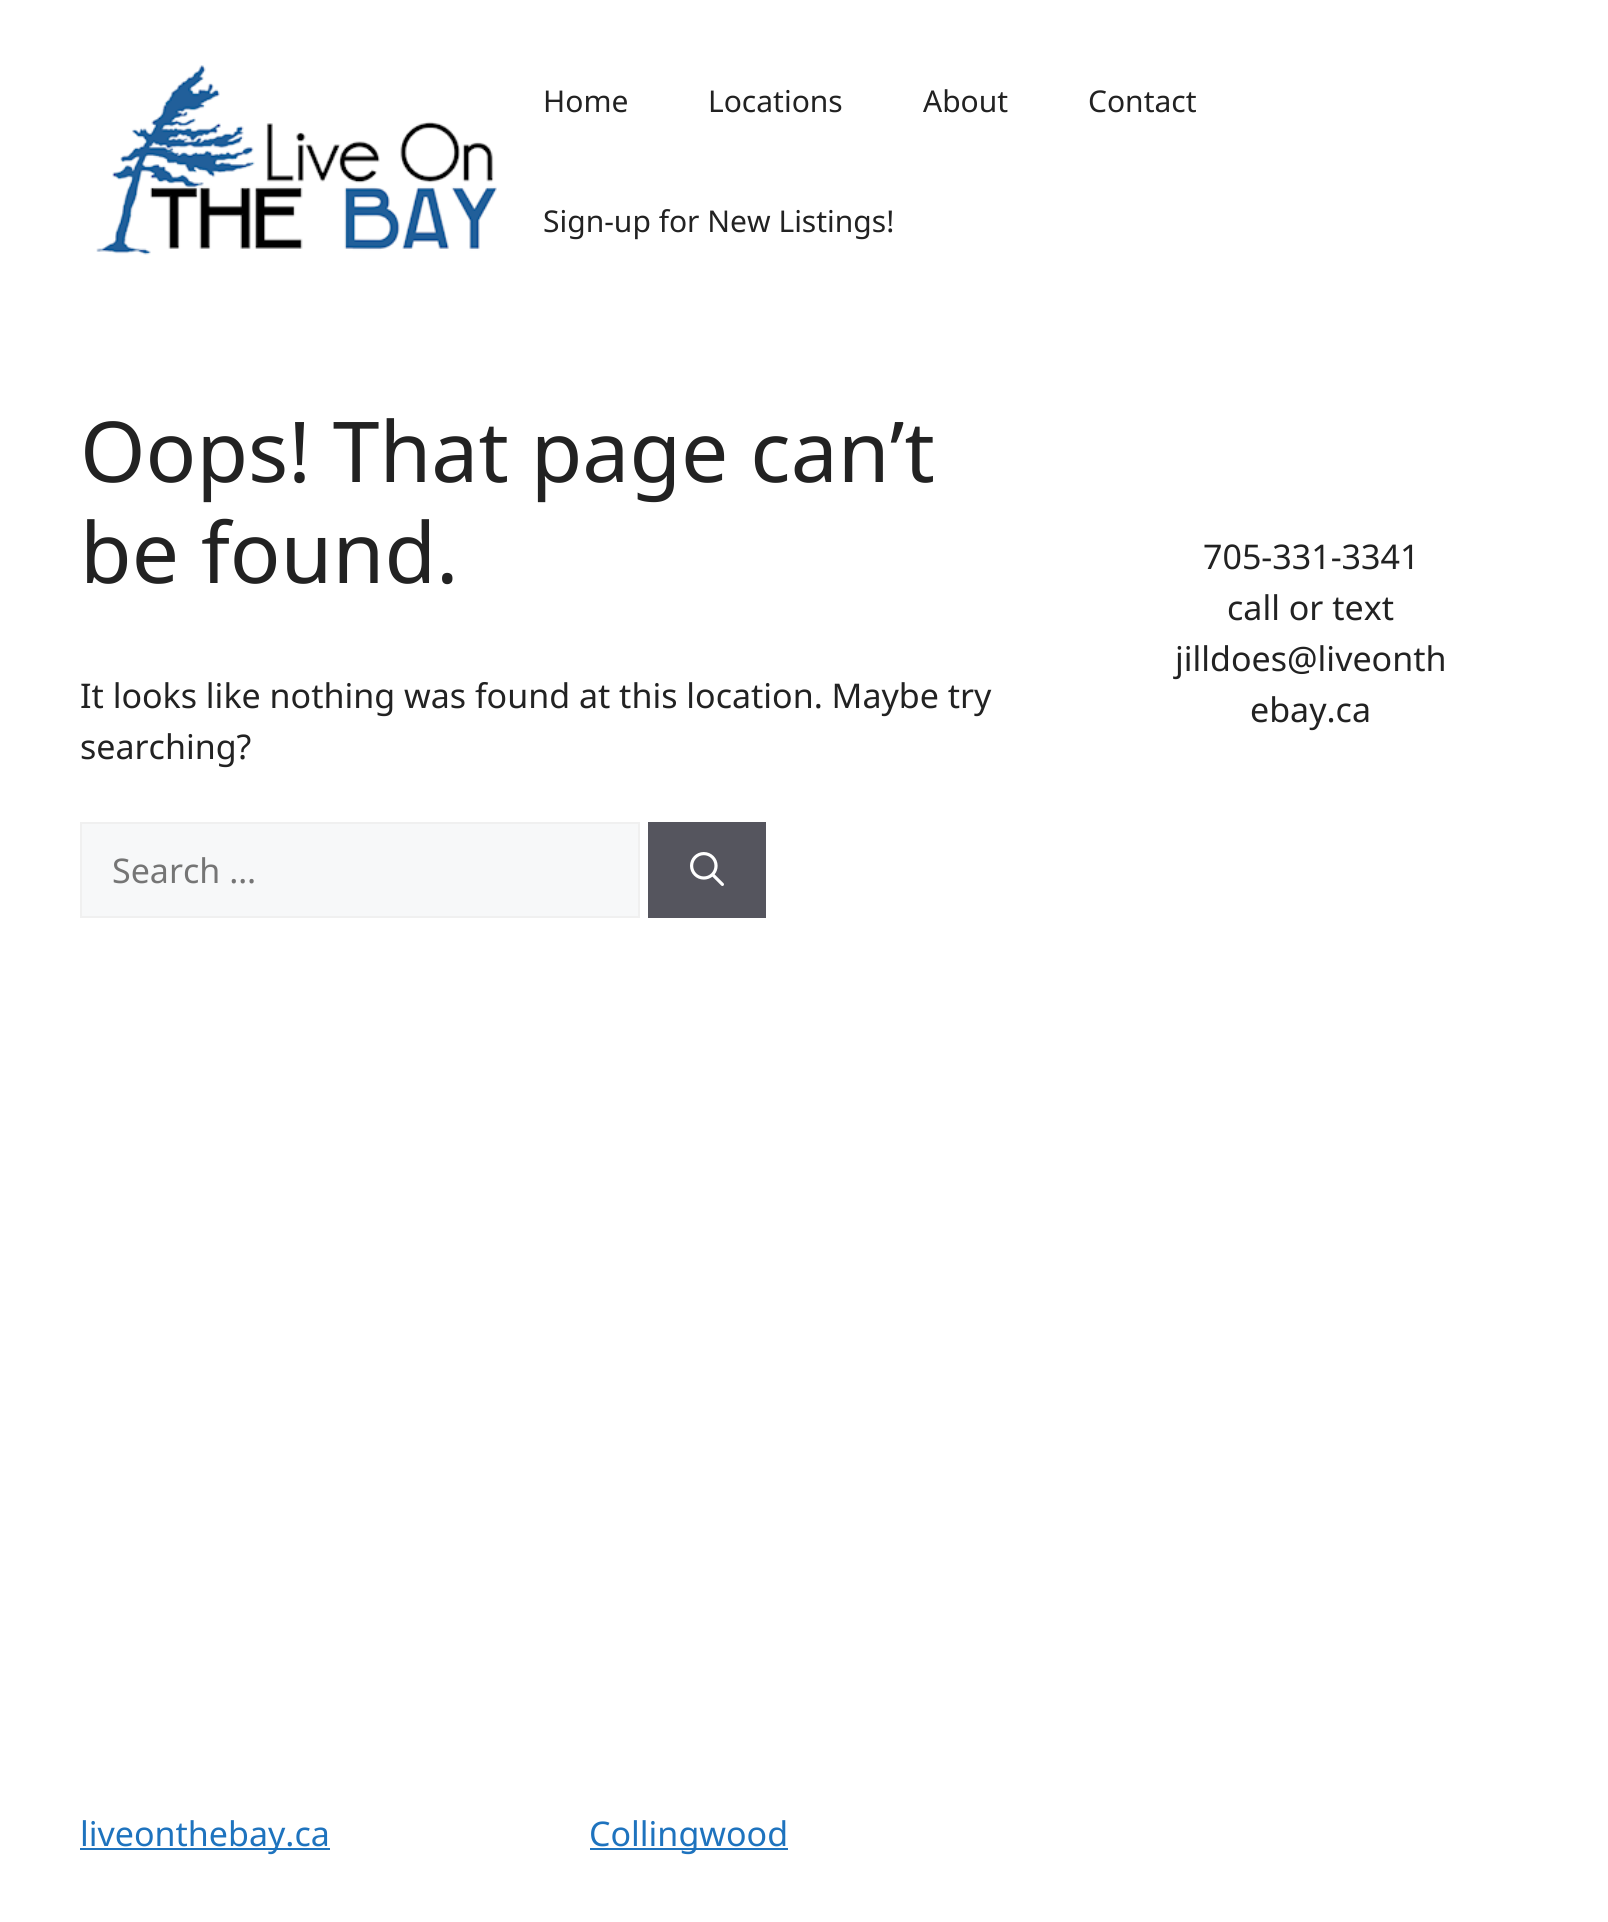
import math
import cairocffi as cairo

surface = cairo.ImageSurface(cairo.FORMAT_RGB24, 1608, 1922)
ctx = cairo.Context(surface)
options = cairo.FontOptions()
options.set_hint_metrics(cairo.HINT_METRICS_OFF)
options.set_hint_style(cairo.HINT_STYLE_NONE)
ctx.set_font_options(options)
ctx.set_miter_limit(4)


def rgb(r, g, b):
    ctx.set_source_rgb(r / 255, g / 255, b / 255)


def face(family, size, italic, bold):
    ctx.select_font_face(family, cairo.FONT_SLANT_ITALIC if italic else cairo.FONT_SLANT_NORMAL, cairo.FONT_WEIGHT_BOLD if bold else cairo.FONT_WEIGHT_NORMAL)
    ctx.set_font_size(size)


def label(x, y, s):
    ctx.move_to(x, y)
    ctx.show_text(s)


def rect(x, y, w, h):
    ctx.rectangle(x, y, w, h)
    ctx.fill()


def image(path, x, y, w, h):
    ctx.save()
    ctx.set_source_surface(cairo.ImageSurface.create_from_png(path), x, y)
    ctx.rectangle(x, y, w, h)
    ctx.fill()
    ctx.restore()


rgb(255, 255, 255)
ctx.paint()
image('image0.png', 96, 65, 401, 190)
face('Noto Sans', 30, 0, 0)
rgb(34, 34, 34)
label(543, 112, 'Home')
label(708, 112, 'Locations')
label(923, 112, 'About')
label(1088, 112, 'Contact')
label(543, 232, 'Sign-up for New Listings!')
face('Noto Sans', 84, 0, 0)
label(80, 482, 'Oops! That page can’t')
label(80, 583, 'be found.')
face('Noto Sans', 34, 0, 0)
label(80, 708, 'It looks like nothing was found at this location. Maybe try')
label(80, 759, 'searching?')
rgb(247, 248, 249)
ctx.rectangle(81, 823, 558, 94)
ctx.fill_preserve()
rgb(240, 240, 240)
ctx.stroke()
rgb(117, 117, 117)
label(112, 883, 'Search …')
rgb(85, 85, 94)
rect(648, 822, 118, 96)
image('image1.png', 690, 852, 34, 34)
rgb(34, 34, 34)
label(1203, 569, '705-331-3341')
label(1227, 620, 'call or text')
label(1175, 671, 'jilldoes@liveonth')
label(1250, 722, 'ebay.ca')
rgb(30, 115, 190)
rect(80, 1848, 250, 2)
label(80, 1846, 'liveonthebay.ca')
rect(590, 1848, 198, 2)
label(589, 1846, 'Collingwood')
surface.write_to_png('render.png')
